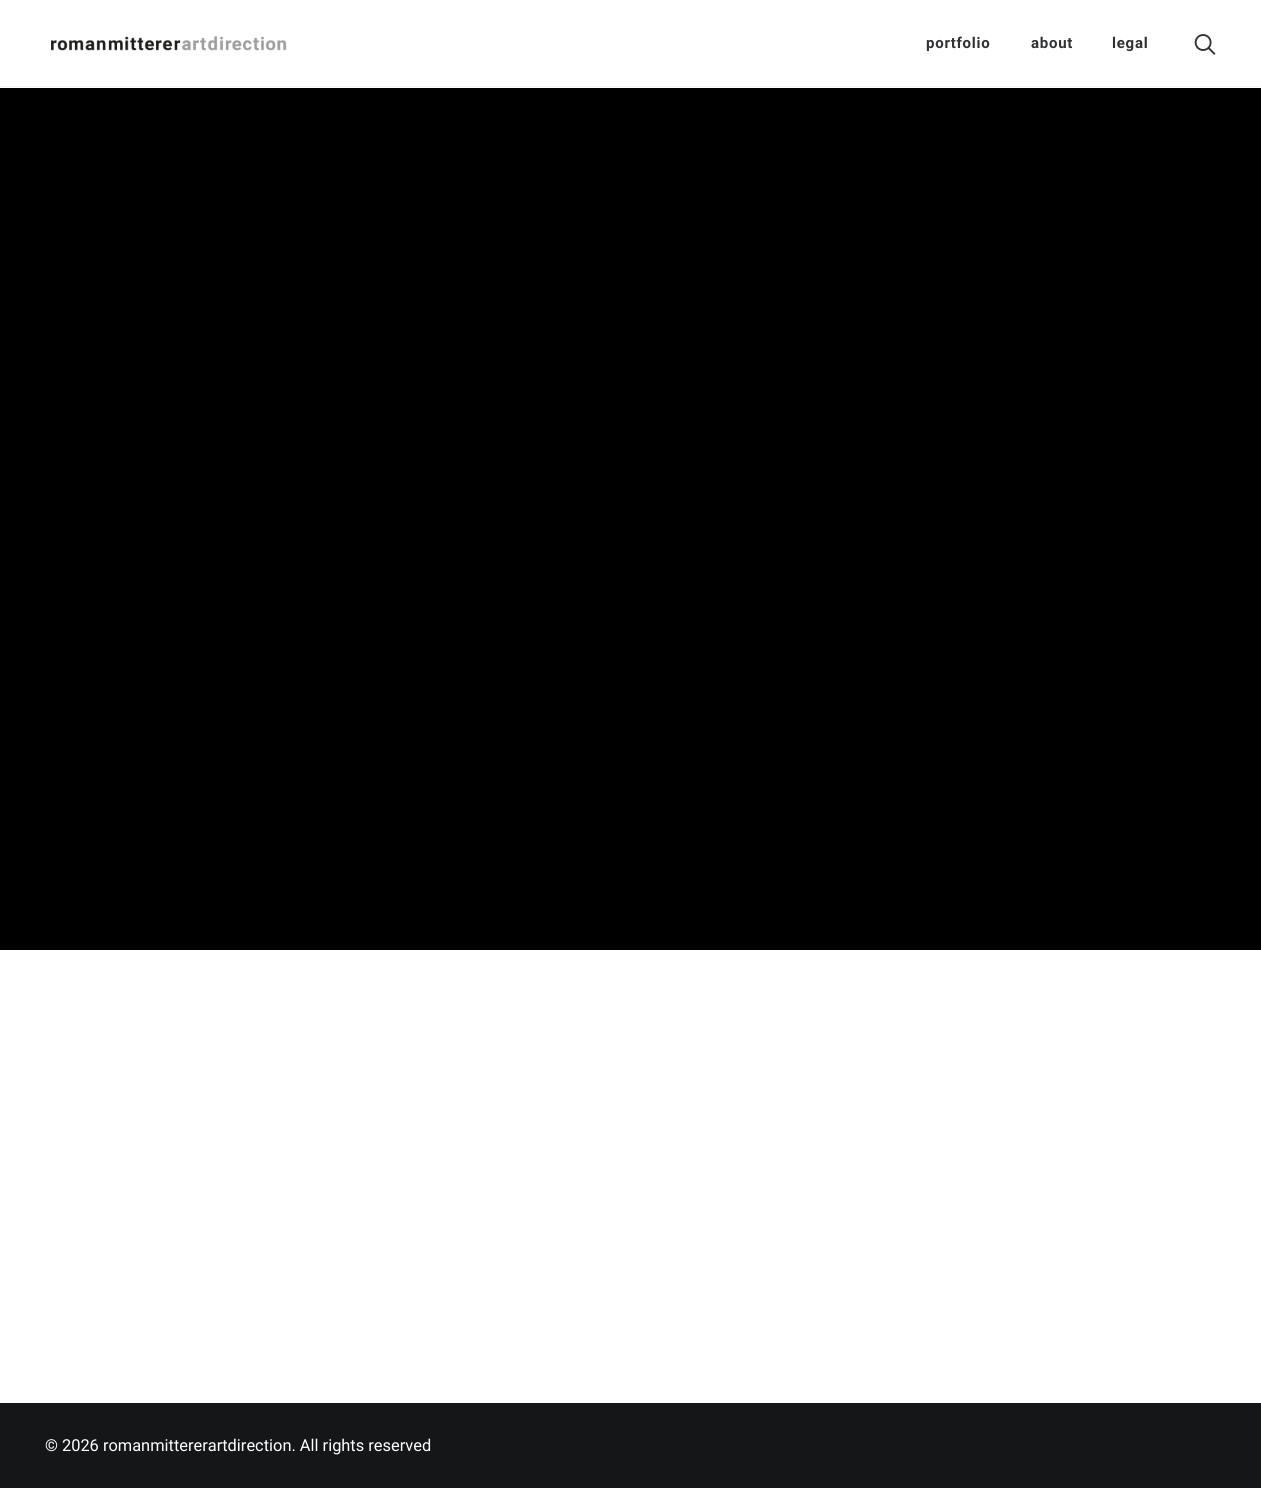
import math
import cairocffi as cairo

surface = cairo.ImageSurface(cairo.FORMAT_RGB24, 1261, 1488)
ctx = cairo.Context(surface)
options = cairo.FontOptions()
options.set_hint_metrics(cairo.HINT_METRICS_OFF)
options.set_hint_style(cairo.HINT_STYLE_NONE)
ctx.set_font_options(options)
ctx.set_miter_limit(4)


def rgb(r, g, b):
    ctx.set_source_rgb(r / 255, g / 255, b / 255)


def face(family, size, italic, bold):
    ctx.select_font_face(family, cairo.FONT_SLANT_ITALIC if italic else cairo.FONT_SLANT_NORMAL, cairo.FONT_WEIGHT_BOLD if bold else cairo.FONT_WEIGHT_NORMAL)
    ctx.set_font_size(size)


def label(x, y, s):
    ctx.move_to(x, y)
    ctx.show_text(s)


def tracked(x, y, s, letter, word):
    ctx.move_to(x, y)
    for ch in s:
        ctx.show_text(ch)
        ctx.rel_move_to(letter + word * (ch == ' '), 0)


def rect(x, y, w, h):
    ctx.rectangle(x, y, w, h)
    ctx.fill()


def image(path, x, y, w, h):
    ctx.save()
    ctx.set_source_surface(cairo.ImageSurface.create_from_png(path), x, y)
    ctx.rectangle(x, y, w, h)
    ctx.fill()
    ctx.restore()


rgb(255, 255, 255)
ctx.paint()
rgb(245, 245, 245)
rect(0, 86, 1261, 1)
image('image0.png', 51, 36, 236, 15)
face('Roboto', 15, 0, 1)
rgb(48, 49, 51)
tracked(926, 48, 'portfolio', 0.75, 0)
tracked(1031, 48, 'about', 0.75, 0)
tracked(1112, 48, 'legal', 0.75, 0)
image('image1.png', 1194, 34, 22, 21)
rgb(0, 0, 0)
rect(0, 88, 1261, 862)
rgb(20, 22, 24)
rect(0, 1403, 1261, 85)
face('Roboto', 16.4, 0, 0)
rgb(255, 255, 255)
label(45, 1451, '© 2026 romanmittererartdirection. All rights reserved')
surface.write_to_png('render.png')
